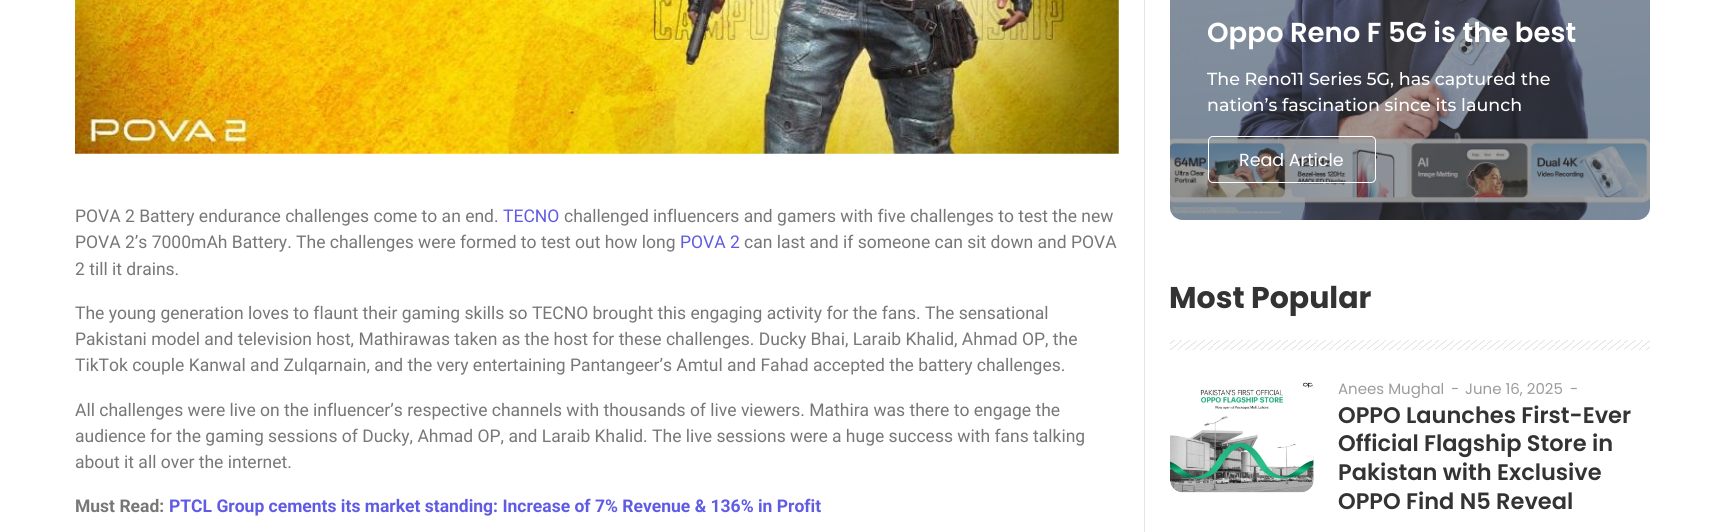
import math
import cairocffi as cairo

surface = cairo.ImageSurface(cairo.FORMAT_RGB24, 1724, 532)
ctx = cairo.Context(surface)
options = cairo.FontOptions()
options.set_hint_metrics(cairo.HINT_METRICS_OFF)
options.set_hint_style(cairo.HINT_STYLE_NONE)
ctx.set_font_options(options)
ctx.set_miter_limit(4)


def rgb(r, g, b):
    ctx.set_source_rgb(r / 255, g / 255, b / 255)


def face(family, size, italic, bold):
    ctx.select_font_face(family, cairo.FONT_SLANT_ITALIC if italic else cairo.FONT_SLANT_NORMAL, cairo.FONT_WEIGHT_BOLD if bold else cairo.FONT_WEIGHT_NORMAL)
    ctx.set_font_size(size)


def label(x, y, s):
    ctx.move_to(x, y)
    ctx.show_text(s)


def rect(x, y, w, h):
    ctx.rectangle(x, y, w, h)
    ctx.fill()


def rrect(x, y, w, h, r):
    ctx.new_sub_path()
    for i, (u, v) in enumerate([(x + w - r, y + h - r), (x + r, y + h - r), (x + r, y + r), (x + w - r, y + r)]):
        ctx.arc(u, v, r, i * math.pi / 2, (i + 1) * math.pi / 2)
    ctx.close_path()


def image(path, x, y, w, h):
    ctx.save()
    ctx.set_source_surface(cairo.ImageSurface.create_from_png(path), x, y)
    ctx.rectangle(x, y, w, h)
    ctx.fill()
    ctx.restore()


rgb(255, 255, 255)
ctx.paint()
rgb(228, 228, 228)
rect(1144, 0, 1, 532)
image('image0.png', 75, 0, 1044, 154)
face('Roboto', 17.5, 0, 0)
rgb(119, 119, 119)
label(75, 222, 'POVA 2 Battery endurance challenges come to an end.')
rgb(96, 91, 229)
label(503, 222, 'TECNO')
rgb(119, 119, 119)
label(564, 222, 'challenged influencers and gamers with five challenges to test the new')
label(75, 248, 'POVA 2’s 7000mAh Battery. The challenges were formed to test out how long')
rgb(96, 91, 229)
label(680, 248, 'POVA 2')
rgb(119, 119, 119)
label(744, 248, 'can last and if someone can sit down and POVA')
label(75, 275, '2 till it drains.')
label(75, 319, 'The young generation loves to flaunt their gaming skills so TECNO brought this engaging activity for the fans. The sensational')
label(75, 345, 'Pakistani model and television host, Mathirawas taken as the host for these challenges. Ducky Bhai, Laraib Khalid, Ahmad OP, the')
label(75, 371, 'TikTok couple Kanwal and Zulqarnain, and the very entertaining Pantangeer’s Amtul and Fahad accepted the battery challenges.')
label(75, 416, 'All challenges were live on the influencer’s respective channels with thousands of live viewers. Mathira was there to engage the')
label(75, 442, 'audience for the gaming sessions of Ducky, Ahmad OP, and Laraib Khalid. The live sessions were a huge success with fans talking')
label(75, 468, 'about it all over the internet.')
face('Roboto', 17.5, 0, 1)
label(75, 512, 'Must Read:')
rgb(96, 91, 229)
label(169, 512, 'PTCL Group cements its market standing: Increase of 7% Revenue & 136% in Profit')
image('image1.png', 1170, 0, 480, 220)
ctx.set_source_rgba(0.275, 0.275, 0.275, 0.5)
rrect(1170, -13, 480, 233, 13)
ctx.fill()
face('Poppins SemiBold', 27.5, 0, 0)
rgb(255, 255, 255)
label(1207, 42, 'Oppo Reno F 5G is the best')
face('Montserrat Medium', 17.5, 0, 0)
label(1207, 85, 'The Reno11 Series 5G, has captured the')
label(1207, 111, 'nation’s fascination since its launch')
rrect(1208.5, 136.5, 167, 46, 4.5)
ctx.set_line_width(1)
ctx.stroke()
face('Poppins', 17.5, 0, 0)
label(1239, 166, 'Read Article')
face('Poppins', 30, 0, 1)
rgb(51, 51, 51)
label(1169, 308, 'Most Popular')
image('image2.png', 1170, 340, 480, 10)
image('image3.png', 1170, 382, 144, 111)
face('Poppins', 15, 0, 0)
rgb(156, 156, 156)
label(1338, 394, 'Anees Mughal')
label(1451, 394, '-')
label(1465, 394, 'June 16, 2025')
label(1570, 394, '-')
face('Poppins SemiBold', 22.5, 0, 0)
rgb(51, 51, 51)
label(1338, 423, 'OPPO Launches First-Ever')
label(1338, 451, 'Official Flagship Store in')
label(1338, 480, 'Pakistan with Exclusive')
label(1338, 509, 'OPPO Find N5 Reveal')
surface.write_to_png('render.png')
